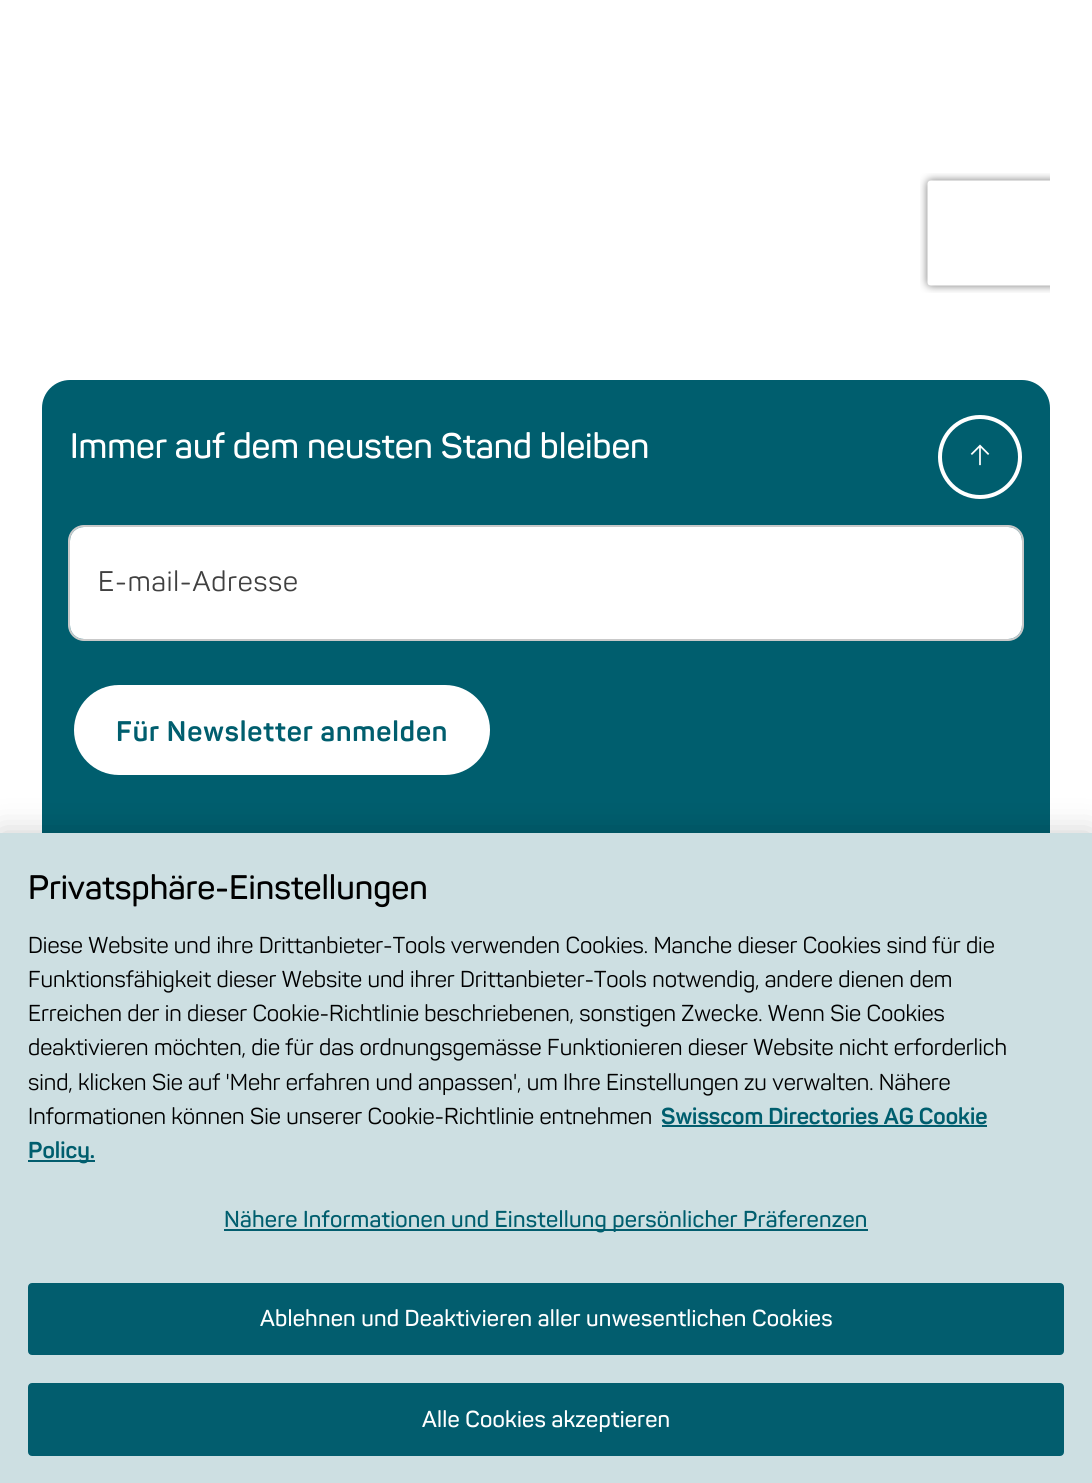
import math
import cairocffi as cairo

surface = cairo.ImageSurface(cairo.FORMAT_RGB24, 1092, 1483)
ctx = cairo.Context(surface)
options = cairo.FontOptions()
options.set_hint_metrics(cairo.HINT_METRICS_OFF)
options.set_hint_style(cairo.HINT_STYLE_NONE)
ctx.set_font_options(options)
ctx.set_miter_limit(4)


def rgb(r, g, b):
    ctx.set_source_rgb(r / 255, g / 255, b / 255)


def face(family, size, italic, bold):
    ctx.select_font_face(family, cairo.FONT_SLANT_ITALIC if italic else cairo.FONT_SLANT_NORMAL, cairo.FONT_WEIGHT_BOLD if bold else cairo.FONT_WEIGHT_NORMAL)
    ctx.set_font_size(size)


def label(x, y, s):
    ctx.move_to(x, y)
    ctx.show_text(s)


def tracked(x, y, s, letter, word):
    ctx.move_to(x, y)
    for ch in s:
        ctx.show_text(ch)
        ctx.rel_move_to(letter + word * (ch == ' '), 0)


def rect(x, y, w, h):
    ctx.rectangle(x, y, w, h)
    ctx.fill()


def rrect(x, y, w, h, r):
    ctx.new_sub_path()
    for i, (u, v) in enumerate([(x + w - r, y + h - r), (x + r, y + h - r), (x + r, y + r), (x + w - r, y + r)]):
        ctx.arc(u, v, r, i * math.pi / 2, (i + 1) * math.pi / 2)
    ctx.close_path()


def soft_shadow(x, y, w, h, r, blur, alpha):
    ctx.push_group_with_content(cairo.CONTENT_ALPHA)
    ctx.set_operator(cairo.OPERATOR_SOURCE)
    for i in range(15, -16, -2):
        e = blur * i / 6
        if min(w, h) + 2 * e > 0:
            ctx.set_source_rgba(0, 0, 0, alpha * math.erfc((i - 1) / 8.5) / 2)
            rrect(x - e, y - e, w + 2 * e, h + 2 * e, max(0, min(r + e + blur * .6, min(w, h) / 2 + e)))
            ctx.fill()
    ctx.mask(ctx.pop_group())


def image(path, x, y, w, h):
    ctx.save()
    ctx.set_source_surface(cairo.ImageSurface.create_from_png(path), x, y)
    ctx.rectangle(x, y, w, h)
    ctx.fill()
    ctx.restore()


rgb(255, 255, 255)
ctx.paint()
image('image0.png', 920, 173, 130, 120)
rgb(0, 94, 110)
rrect(42, 380, 1008, 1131, 28)
ctx.fill()
face('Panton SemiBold', 35, 0, 0)
rgb(255, 255, 255)
label(70, 458, 'Immer auf dem neusten Stand bleiben')
rrect(69, 526, 954, 114, 15)
rgb(201, 201, 201)
ctx.stroke()
rgb(255, 255, 255)
rrect(70, 527, 952, 112, 14)
ctx.fill()
face('Panton', 28, 0, 0)
rgb(64, 64, 64)
tracked(98, 591, 'E-mail-Adresse', 0.9, 0)
rgb(255, 255, 255)
rrect(72, 683, 420, 94, 47)
ctx.fill_preserve()
rgb(0, 94, 110)
ctx.set_line_width(4)
ctx.stroke()
face('Panton', 28, 0, 1)
tracked(116, 741, 'Für Newsletter anmelden', 0.9, 0)
ctx.new_path()
ctx.arc(980, 457, 40, 0, 2 * math.pi)
rgb(255, 255, 255)
ctx.stroke()
image('image1.png', 970, 444, 20, 22)
rgb(0, 0, 0)
soft_shadow(0, 833, 1092, 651, 0, 16, 0.2)
rgb(205, 223, 226)
rect(0, 833, 1092, 650)
face('Panton SemiBold', 33.6, 0, 0)
rgb(0, 0, 0)
label(28, 899, 'Privatsphäre-Einstellungen')
face('Panton', 22.75, 0, 0)
label(28, 953, 'Diese Website und ihre Drittanbieter-Tools verwenden Cookies. Manche dieser Cookies sind für die')
label(28, 987, 'Funktionsfähigkeit dieser Website und ihrer Drittanbieter-Tools notwendig, andere dienen dem')
label(28, 1021, 'Erreichen der in dieser Cookie-Richtlinie beschriebenen, sonstigen Zwecke. Wenn Sie Cookies')
label(28, 1055, 'deaktivieren möchten, die für das ordnungsgemässe Funktionieren dieser Website nicht erforderlich')
label(28, 1090, 'sind, klicken Sie auf \'Mehr erfahren und anpassen\', um Ihre Einstellungen zu verwalten. Nähere')
label(28, 1124, 'Informationen können Sie unserer Cookie-Richtlinie entnehmen')
face('Panton', 22.75, 0, 1)
rgb(0, 94, 110)
label(661, 1124, 'Swisscom Directories AG Cookie')
rgb(2, 93, 110)
rect(662, 1125, 325, 2)
rect(28, 1160, 67, 2)
rgb(0, 94, 110)
label(28, 1158, 'Policy.')
rgb(2, 93, 110)
rect(224, 1229, 644, 2)
face('Panton SemiBold', 22.75, 0, 0)
rgb(0, 94, 110)
tracked(224, 1227, 'Nähere Informationen und Einstellung persönlicher Präferenzen', 0.23, 0)
rgb(2, 93, 110)
rrect(29, 1284, 1034, 70, 3)
ctx.fill_preserve()
ctx.set_line_width(2)
ctx.stroke()
rgb(255, 255, 255)
tracked(260, 1326, 'Ablehnen und Deaktivieren aller unwesentlichen Cookies', 0.23, 0)
rgb(2, 93, 110)
rrect(29, 1384, 1034, 71, 3)
ctx.fill_preserve()
ctx.stroke()
rgb(255, 255, 255)
tracked(422, 1427, 'Alle Cookies akzeptieren', 0.23, 0)
surface.write_to_png('render.png')
